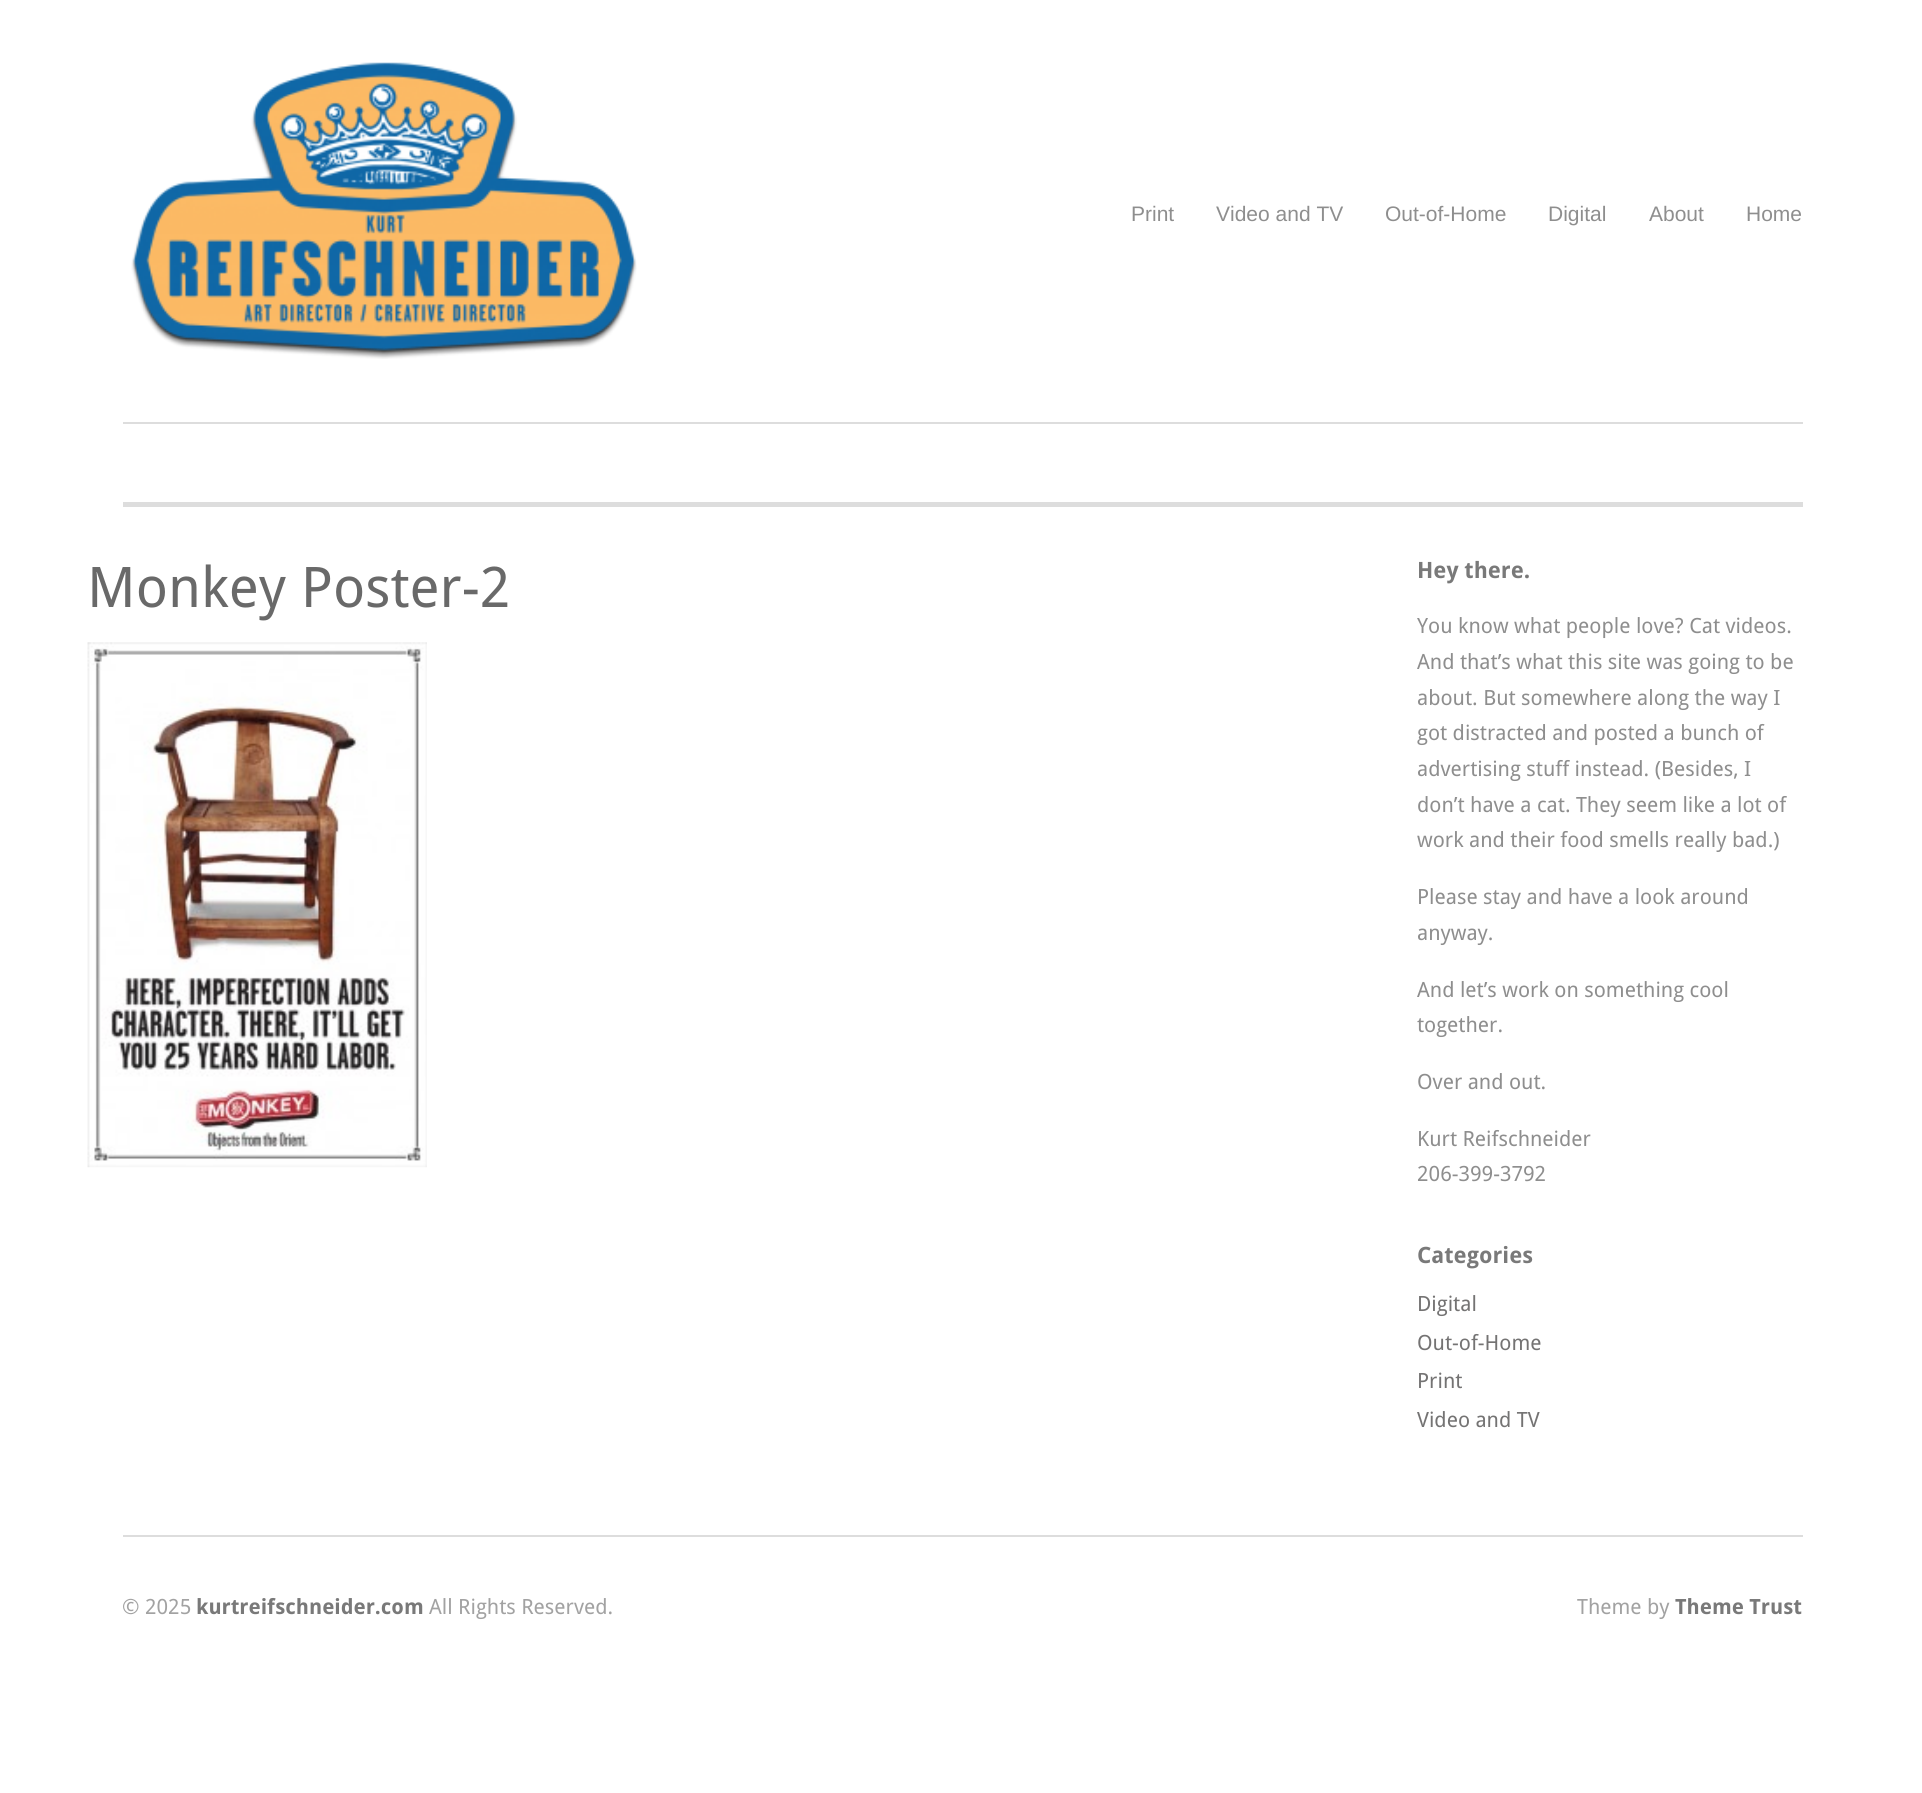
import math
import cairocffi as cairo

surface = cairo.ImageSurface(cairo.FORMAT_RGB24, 1922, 1793)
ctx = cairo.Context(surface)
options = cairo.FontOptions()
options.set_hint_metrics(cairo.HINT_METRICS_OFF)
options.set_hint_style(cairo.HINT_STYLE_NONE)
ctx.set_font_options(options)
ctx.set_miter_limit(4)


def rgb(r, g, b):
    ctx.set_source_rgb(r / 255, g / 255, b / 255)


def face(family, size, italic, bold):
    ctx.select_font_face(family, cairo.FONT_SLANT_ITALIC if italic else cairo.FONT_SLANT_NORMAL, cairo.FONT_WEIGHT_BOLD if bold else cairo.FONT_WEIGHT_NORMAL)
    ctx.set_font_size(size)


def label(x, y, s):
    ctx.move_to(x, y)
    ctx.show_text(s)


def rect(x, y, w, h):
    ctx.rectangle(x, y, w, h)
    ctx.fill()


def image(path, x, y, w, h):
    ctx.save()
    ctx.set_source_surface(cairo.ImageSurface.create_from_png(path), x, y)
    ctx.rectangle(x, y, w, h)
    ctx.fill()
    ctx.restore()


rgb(255, 255, 255)
ctx.paint()
image('image0.png', 131, 62, 506, 297)
face('Liberation Sans', 21, 0, 0)
rgb(142, 142, 142)
label(1131, 221, 'Print')
label(1216, 221, 'Video and TV')
label(1385, 221, 'Out-of-Home')
label(1548, 221, 'Digital')
label(1649, 221, 'About')
label(1746, 221, 'Home')
rgb(221, 221, 221)
rect(123, 422, 1680, 2)
rect(123, 502, 1680, 5)
face('Droid Sans', 56, 0, 0)
rgb(105, 105, 105)
label(87, 607, 'Monkey Poster-2')
image('image1.png', 87, 642, 340, 526)
face('Droid Sans', 22.5, 0, 1)
rgb(121, 121, 121)
label(1417, 578, 'Hey there.')
face('Droid Sans', 21, 0, 0)
rgb(142, 142, 142)
label(1417, 633, 'You know what people love? Cat videos.')
label(1417, 669, 'And that’s what this site was going to be')
label(1417, 705, 'about. But somewhere along the way I')
label(1417, 740, 'got distracted and posted a bunch of')
label(1417, 776, 'advertising stuff instead. (Besides, I')
label(1417, 812, 'don’t have a cat. They seem like a lot of')
label(1417, 847, 'work and their food smells really bad.)')
label(1417, 904, 'Please stay and have a look around')
label(1417, 940, 'anyway.')
label(1417, 997, 'And let’s work on something cool')
label(1417, 1032, 'together.')
label(1417, 1089, 'Over and out.')
label(1417, 1146, 'Kurt Reifschneider')
label(1417, 1181, '206-399-3792')
face('Droid Sans', 22.5, 0, 1)
rgb(121, 121, 121)
label(1417, 1263, 'Categories')
face('Droid Sans', 21, 0, 0)
rgb(116, 115, 115)
label(1417, 1311, 'Digital')
label(1417, 1350, 'Out-of-Home')
label(1417, 1388, 'Print')
label(1417, 1427, 'Video and TV')
rgb(221, 221, 221)
rect(123, 1535, 1680, 2)
rgb(162, 162, 162)
label(122, 1614, '© 2025')
face('Droid Sans', 21, 0, 1)
rgb(121, 121, 121)
label(196, 1614, 'kurtreifschneider.com')
face('Droid Sans', 21, 0, 0)
rgb(162, 162, 162)
label(429, 1614, 'All Rights Reserved.')
label(1577, 1614, 'Theme by')
face('Droid Sans', 21, 0, 1)
rgb(121, 121, 121)
label(1675, 1614, 'Theme Trust')
surface.write_to_png('render.png')
